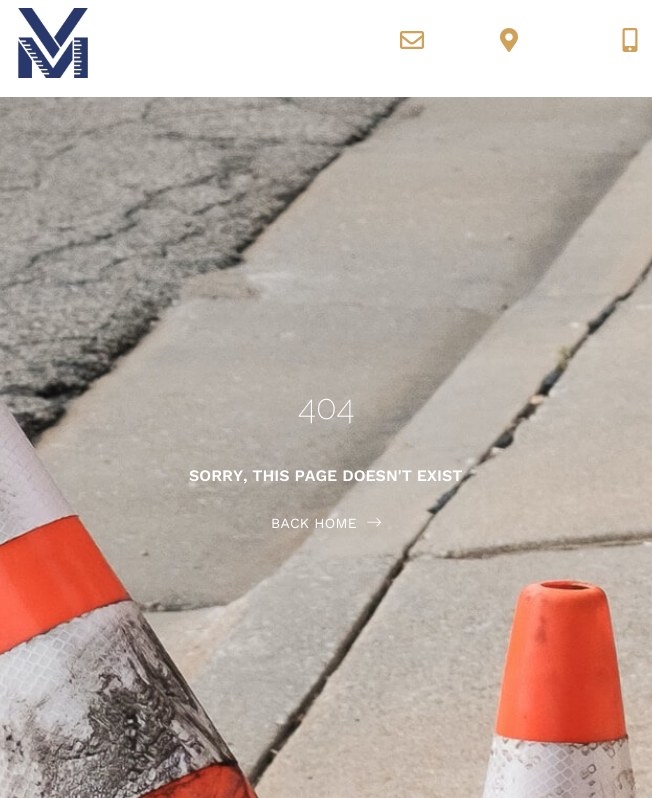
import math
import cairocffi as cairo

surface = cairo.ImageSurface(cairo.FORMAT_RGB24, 652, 798)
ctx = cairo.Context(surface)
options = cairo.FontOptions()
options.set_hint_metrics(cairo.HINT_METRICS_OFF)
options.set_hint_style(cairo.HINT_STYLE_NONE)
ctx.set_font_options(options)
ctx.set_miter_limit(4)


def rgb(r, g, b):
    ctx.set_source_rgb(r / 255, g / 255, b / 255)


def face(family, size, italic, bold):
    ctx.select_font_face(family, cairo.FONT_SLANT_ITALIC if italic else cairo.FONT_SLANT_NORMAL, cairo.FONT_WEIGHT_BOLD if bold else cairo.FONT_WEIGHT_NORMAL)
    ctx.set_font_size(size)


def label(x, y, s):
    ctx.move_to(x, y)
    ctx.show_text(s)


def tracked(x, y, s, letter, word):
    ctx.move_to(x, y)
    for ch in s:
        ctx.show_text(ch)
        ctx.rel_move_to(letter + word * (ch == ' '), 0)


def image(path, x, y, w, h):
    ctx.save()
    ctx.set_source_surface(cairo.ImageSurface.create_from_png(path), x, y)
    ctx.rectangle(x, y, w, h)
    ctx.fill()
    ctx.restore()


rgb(255, 255, 255)
ctx.paint()
image('image0.png', 18, 8, 70, 70)
image('image1.png', 400, 31, 24, 18)
image('image2.png', 500, 28, 18, 24)
image('image3.png', 622, 28, 16, 24)
image('image4.png', 0, 97, 652, 701)
face('Raleway ExtraLight', 34, 0, 0)
rgb(255, 255, 255)
label(298, 419, '404')
face('Work Sans SemiBold', 16, 0, 0)
label(189, 481, 'SORRY, THIS PAGE DOESN\'T EXIST')
face('Work Sans', 14, 0, 0)
tracked(271, 528, 'BACK HOME', 0.25, 0)
image('image5.png', 367, 518, 14, 9)
surface.write_to_png('render.png')
